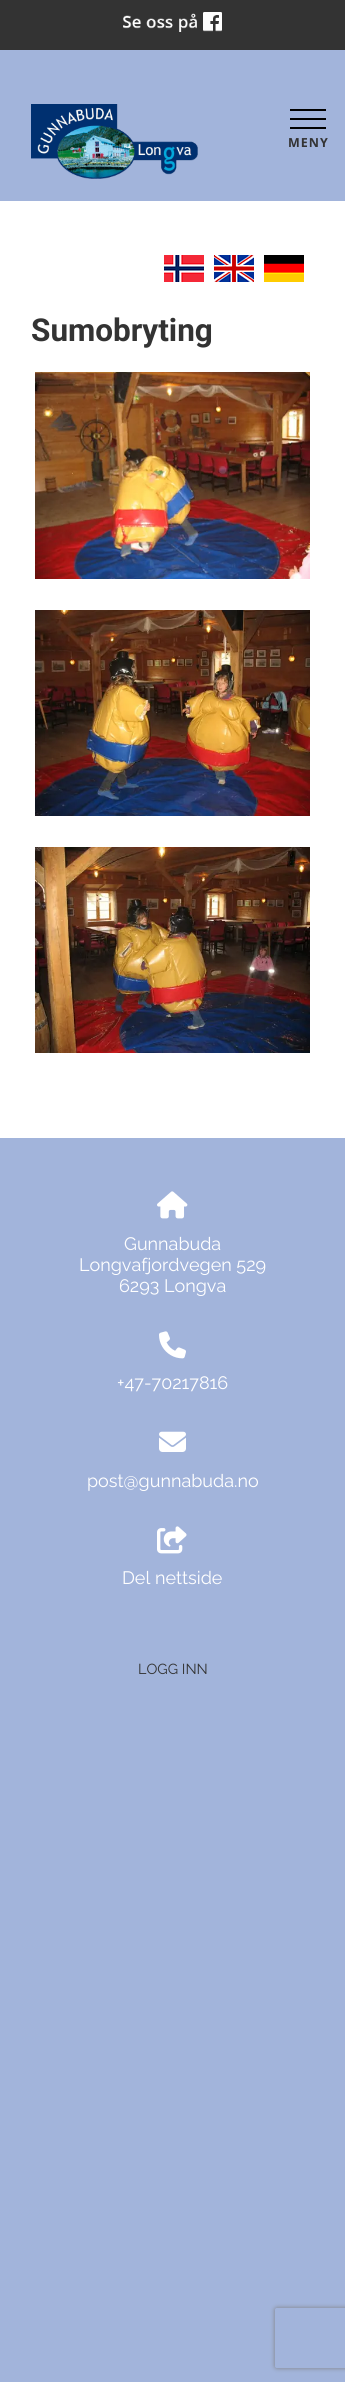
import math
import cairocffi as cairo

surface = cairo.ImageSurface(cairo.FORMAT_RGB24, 345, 2382)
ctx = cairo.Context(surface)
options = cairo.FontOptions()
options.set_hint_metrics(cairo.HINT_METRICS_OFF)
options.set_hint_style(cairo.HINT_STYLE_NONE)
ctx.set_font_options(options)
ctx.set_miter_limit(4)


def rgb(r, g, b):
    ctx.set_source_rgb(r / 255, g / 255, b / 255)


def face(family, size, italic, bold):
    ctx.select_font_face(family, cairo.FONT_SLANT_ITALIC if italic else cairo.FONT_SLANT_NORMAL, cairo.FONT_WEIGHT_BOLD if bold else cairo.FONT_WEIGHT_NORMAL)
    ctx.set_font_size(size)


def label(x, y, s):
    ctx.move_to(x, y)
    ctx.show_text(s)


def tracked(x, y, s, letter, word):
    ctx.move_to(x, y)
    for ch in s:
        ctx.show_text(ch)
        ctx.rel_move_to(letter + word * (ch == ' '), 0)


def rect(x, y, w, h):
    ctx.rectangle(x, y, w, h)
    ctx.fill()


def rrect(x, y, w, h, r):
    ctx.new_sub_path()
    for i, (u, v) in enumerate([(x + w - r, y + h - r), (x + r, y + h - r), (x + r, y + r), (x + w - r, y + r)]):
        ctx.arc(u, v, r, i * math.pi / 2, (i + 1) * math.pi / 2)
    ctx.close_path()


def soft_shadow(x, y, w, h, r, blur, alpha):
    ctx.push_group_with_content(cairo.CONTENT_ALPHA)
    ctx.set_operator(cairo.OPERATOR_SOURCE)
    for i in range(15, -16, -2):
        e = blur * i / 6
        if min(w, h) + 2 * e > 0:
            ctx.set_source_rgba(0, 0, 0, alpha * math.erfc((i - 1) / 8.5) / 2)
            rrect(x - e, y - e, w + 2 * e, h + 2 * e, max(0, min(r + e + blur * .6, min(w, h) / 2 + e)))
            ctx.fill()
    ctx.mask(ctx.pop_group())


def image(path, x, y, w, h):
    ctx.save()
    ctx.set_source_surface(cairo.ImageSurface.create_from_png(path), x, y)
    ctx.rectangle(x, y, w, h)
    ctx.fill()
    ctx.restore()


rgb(162, 180, 219)
ctx.paint()
image('image0.png', 31, 104, 167, 75)
rgb(0, 0, 0)
rect(290, 118, 36, 2)
rect(290, 109, 36, 2)
rect(290, 127, 36, 2)
face('Open Sans', 12.5, 0, 1)
rgb(51, 51, 51)
tracked(288, 147, 'MENY', 1, 0)
rgb(255, 255, 255)
rect(0, 201, 345, 937)
rgb(51, 51, 51)
rect(0, 0, 345, 50)
image('image1.png', 123, 12, 99, 20)
image('image2.png', 164, 255, 40, 27)
image('image3.png', 214, 255, 40, 27)
image('image4.png', 264, 255, 40, 27)
face('Roboto', 31.5, 0, 1)
label(31, 341, 'Sumobryting')
image('image5.png', 35, 372, 275, 207)
image('image6.png', 35, 610, 275, 206)
image('image7.png', 35, 847, 275, 206)
image('image8.png', 157, 1191, 31, 28)
face('Raleway', 18, 0, 0)
rgb(255, 255, 255)
label(124, 1250, 'Gunnabuda')
label(79, 1271, 'Longvafjordvegen 529')
label(119, 1292, '6293 Longva')
image('image9.png', 159, 1331, 27, 28)
label(117, 1389, '+47-70217816')
image('image10.png', 159, 1431, 27, 21)
label(87, 1487, 'post@gunnabuda.no')
image('image11.png', 157, 1526, 30, 28)
label(122, 1584, 'Del nettside')
face('Raleway', 14.5, 0, 0)
rgb(51, 51, 51)
label(138, 1674, 'LOGG INN')
ctx.save()
ctx.set_fill_rule(cairo.FILL_RULE_EVEN_ODD)
ctx.new_path()
ctx.move_to(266, 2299)
ctx.line_to(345, 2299)
ctx.line_to(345, 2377)
ctx.line_to(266, 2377)
ctx.close_path()
ctx.move_to(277, 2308)
ctx.line_to(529, 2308)
ctx.curve_to(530, 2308, 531, 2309, 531, 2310)
ctx.line_to(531, 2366)
ctx.curve_to(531, 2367, 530, 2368, 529, 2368)
ctx.line_to(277, 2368)
ctx.curve_to(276, 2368, 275, 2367, 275, 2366)
ctx.line_to(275, 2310)
ctx.curve_to(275, 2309, 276, 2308, 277, 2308)
ctx.close_path()
ctx.clip()
rgb(128, 128, 128)
soft_shadow(275, 2308, 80, 60, 2, 2.5, 1)
ctx.restore()
surface.write_to_png('render.png')
